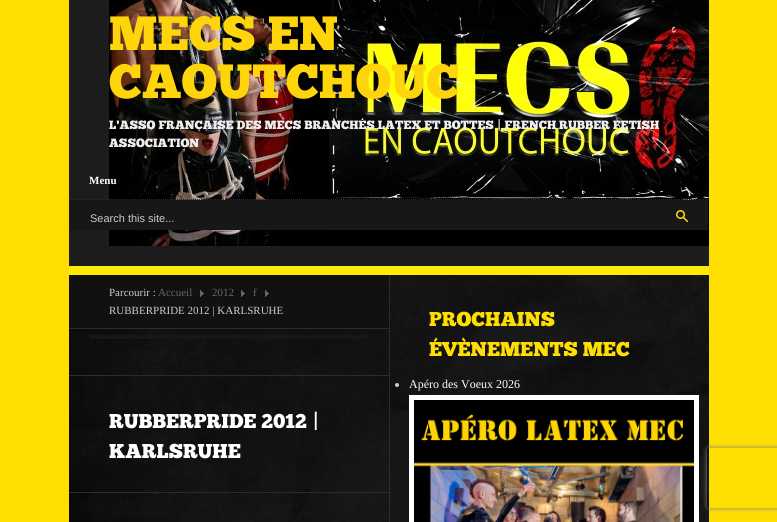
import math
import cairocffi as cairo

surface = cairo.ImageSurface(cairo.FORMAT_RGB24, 777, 522)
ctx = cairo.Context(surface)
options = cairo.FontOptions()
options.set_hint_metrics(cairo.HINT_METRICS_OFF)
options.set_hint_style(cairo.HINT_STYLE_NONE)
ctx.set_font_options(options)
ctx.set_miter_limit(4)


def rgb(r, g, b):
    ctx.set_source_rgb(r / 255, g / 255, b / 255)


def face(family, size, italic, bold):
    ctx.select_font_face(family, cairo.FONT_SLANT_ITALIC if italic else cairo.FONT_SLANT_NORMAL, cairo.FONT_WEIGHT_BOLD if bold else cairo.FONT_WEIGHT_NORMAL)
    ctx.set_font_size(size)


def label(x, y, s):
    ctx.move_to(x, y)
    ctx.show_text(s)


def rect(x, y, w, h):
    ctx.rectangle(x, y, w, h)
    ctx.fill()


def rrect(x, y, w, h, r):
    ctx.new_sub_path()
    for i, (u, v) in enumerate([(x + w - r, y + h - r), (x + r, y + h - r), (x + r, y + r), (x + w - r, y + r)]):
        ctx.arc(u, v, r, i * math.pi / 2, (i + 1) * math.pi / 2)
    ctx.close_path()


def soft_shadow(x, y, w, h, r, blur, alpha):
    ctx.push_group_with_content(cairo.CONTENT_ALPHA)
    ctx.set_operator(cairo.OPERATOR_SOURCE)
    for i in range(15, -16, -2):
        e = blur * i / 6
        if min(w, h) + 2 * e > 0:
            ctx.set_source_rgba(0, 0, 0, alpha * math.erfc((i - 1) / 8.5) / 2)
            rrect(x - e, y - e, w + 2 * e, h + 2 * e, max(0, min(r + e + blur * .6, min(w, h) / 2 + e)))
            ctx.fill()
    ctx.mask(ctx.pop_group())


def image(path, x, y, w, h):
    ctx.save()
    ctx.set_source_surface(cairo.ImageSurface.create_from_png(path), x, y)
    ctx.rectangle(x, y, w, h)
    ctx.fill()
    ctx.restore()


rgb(255, 222, 1)
ctx.paint()
image('image0.png', 69, 275, 640, 247)
rgb(44, 44, 44)
rect(389, 275, 1, 247)
rgb(28, 28, 28)
rect(69, 0, 640, 266)
image('image1.png', 109, 0, 600, 246)
face('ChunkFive', 48, 0, 0)
rgb(254, 213, 11)
label(109, 50, 'MECS EN')
label(109, 98, 'CAOUTCHOUC')
face('ChunkFive', 12, 0, 0)
rgb(238, 238, 238)
label(109, 129, 'L\'ASSO FRANÇAISE DES MECS BRANCHÉS LATEX ET BOTTES | FRENCH RUBBER FETISH')
label(109, 147, 'ASSOCIATION')
ctx.new_path()
ctx.move_to(69, 199.5)
ctx.line_to(709, 199.5)
rgb(44, 44, 44)
ctx.set_line_width(1)
ctx.set_dash([1, 1])
ctx.stroke()
face('Liberation Serif', 11, 0, 1)
rgb(255, 255, 255)
label(89, 184, 'Menu')
rgb(23, 23, 23)
rect(70, 200, 638, 30)
face('Liberation Sans', 11, 0, 0)
rgb(204, 204, 204)
label(90, 222, 'Search this site...')
image('image2.png', 676, 210, 12, 12)
rgb(255, 235, 1)
rect(69, 266, 640, 9)
rgb(17, 17, 17)
rect(69, 275, 320, 53)
rgb(44, 44, 44)
rect(69, 328, 320, 1)
face('Liberation Serif', 11, 0, 0)
rgb(204, 204, 204)
label(109, 296, 'Parcourir :')
rgb(102, 102, 102)
label(158, 296, 'Accueil')
image('image3.png', 200, 290, 4, 7)
label(212, 296, '2012')
image('image3.png', 241, 290, 4, 7)
label(253, 296, 'f')
image('image3.png', 265, 290, 4, 7)
rgb(204, 204, 204)
label(109, 314, 'RUBBERPRIDE 2012 | KARLSRUHE')
rgb(44, 44, 44)
rect(69, 375, 320, 1)
rgb(23, 23, 23)
rect(89, 335, 280, 4)
rgb(44, 44, 44)
rect(69, 492, 320, 1)
face('ChunkFive', 20, 0, 0)
rgb(255, 255, 255)
label(109, 428, 'RUBBERPRIDE 2012 |')
label(109, 458, 'KARLSRUHE')
rgb(255, 222, 1)
label(429, 326, 'PROCHAINS')
label(429, 356, 'ÉVÈNEMENTS MEC')
rgb(204, 204, 204)
ctx.new_path()
ctx.arc(397, 385, 2, 0, 2 * math.pi)
ctx.fill()
face('Liberation Serif', 12, 0, 0)
rgb(255, 255, 255)
label(409, 388, 'Apéro des Voeux 2026')
rect(409, 395, 290, 127)
image('image4.png', 414, 400, 280, 122)
ctx.save()
ctx.set_fill_rule(cairo.FILL_RULE_EVEN_ODD)
ctx.new_path()
ctx.move_to(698, 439)
ctx.line_to(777, 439)
ctx.line_to(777, 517)
ctx.line_to(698, 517)
ctx.close_path()
ctx.move_to(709, 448)
ctx.line_to(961, 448)
ctx.curve_to(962, 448, 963, 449, 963, 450)
ctx.line_to(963, 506)
ctx.curve_to(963, 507, 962, 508, 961, 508)
ctx.line_to(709, 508)
ctx.curve_to(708, 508, 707, 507, 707, 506)
ctx.line_to(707, 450)
ctx.curve_to(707, 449, 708, 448, 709, 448)
ctx.close_path()
ctx.clip()
rgb(128, 128, 128)
soft_shadow(707, 448, 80, 60, 2, 2.5, 1)
ctx.restore()
surface.write_to_png('render.png')
